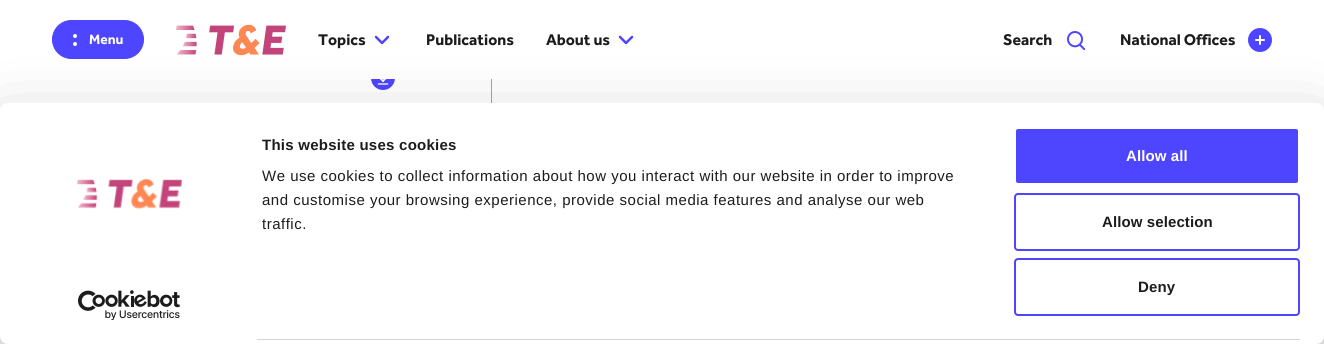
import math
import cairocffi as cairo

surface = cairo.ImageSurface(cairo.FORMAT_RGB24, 1324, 344)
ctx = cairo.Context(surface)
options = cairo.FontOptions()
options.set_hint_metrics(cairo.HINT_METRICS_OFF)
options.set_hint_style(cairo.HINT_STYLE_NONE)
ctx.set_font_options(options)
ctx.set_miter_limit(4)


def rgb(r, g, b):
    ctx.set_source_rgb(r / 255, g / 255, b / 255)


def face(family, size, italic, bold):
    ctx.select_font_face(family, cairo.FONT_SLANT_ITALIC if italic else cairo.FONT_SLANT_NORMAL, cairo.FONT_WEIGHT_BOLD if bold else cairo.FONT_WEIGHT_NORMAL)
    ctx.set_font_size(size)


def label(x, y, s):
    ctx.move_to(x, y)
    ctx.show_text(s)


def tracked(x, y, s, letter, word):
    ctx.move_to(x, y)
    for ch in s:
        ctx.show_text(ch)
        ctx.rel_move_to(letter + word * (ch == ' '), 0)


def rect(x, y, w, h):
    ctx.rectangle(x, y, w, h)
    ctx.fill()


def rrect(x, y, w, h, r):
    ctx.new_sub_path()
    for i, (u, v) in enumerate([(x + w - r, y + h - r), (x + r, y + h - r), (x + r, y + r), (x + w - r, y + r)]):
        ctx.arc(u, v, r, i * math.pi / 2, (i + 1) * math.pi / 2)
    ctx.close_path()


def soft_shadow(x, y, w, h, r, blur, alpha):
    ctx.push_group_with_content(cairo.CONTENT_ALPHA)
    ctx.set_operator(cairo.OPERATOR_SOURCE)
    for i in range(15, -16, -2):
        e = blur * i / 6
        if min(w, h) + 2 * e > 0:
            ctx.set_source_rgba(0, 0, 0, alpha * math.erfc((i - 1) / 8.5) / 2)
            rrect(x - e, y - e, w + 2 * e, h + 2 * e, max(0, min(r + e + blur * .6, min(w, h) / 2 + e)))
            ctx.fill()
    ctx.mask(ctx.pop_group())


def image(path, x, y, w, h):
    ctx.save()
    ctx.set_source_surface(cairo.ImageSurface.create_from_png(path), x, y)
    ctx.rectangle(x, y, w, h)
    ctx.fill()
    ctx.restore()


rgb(255, 255, 255)
ctx.paint()
rgb(77, 69, 255)
ctx.arc(383, 78, 12, 0, 2 * math.pi)
ctx.fill()
rgb(255, 255, 255)
rect(371, 66, 24, 13)
rgb(77, 69, 255)
rrect(52.5, 20.5, 91, 38, 19)
ctx.fill_preserve()
ctx.set_line_width(1)
ctx.stroke()
rgb(255, 255, 255)
ctx.arc(75, 36, 2, 0, 2 * math.pi)
ctx.fill()
ctx.arc(75, 44, 2, 0, 2 * math.pi)
ctx.fill()
face('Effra', 14, 0, 1)
label(89, 44, 'Menu')
image('image0.png', 176, 24, 110, 32)
face('Effra', 16, 0, 1)
rgb(28, 28, 28)
label(318, 45, 'Topics')
ctx.new_path()
ctx.move_to(376, 37)
ctx.line_to(382, 43)
ctx.line_to(388, 37)
rgb(77, 69, 255)
ctx.set_line_width(2.5)
ctx.set_line_cap(cairo.LINE_CAP_ROUND)
ctx.set_line_join(cairo.LINE_JOIN_ROUND)
ctx.stroke()
rgb(28, 28, 28)
label(426, 45, 'Publications')
label(546, 45, 'About us')
ctx.new_path()
ctx.move_to(620, 37)
ctx.line_to(626, 43)
ctx.line_to(632, 37)
rgb(77, 69, 255)
ctx.stroke()
rgb(28, 28, 28)
label(1003, 45, 'Search')
image('image1.png', 1067, 31, 19, 20)
label(1120, 45, 'National Offices')
image('image2.png', 1248, 28, 24, 24)
image('image3.png', 377, 79, 12, 6)
rgb(165, 165, 165)
rect(491, 79, 1, 24)
rgb(0, 0, 0)
soft_shadow(0, 133, 1324, 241, 8, 35, 0.3)
rgb(255, 255, 255)
rrect(0, 103, 1324, 241, 8)
ctx.fill()
image('image4.png', 77, 179, 105, 30)
image('image5.png', 78, 290, 102, 30)
face('Liberation Sans', 15, 0, 1)
rgb(28, 28, 28)
tracked(262, 150, 'This website uses cookies', 0.25, 0)
face('Liberation Sans', 15, 0, 0)
tracked(262, 181, 'We use cookies to collect information about how you interact with our website in order to improve', 0.5, 0)
tracked(262, 205, 'and customise your browsing experience, provide social media features and analyse our web', 0.5, 0)
tracked(262, 229, 'traffic.', 0.5, 0)
rgb(214, 214, 214)
rect(257, 339, 1043, 1)
rgb(77, 69, 255)
rrect(1015, 128, 284, 56, 3)
ctx.fill_preserve()
rgb(255, 255, 255)
ctx.set_line_width(2)
ctx.set_line_cap(cairo.LINE_CAP_BUTT)
ctx.set_line_join(cairo.LINE_JOIN_MITER)
ctx.stroke()
face('Liberation Sans', 15, 0, 1)
tracked(1126, 161, 'Allow all', 0.1, 0)
rrect(1015, 194, 284, 56, 3)
rgb(77, 69, 255)
ctx.stroke()
rgb(28, 28, 28)
tracked(1102, 227, 'Allow selection', 0.1, 0)
rrect(1015, 259, 284, 56, 3)
rgb(77, 69, 255)
ctx.stroke()
rgb(28, 28, 28)
tracked(1138, 292, 'Deny', 0.1, 0)
surface.write_to_png('render.png')
